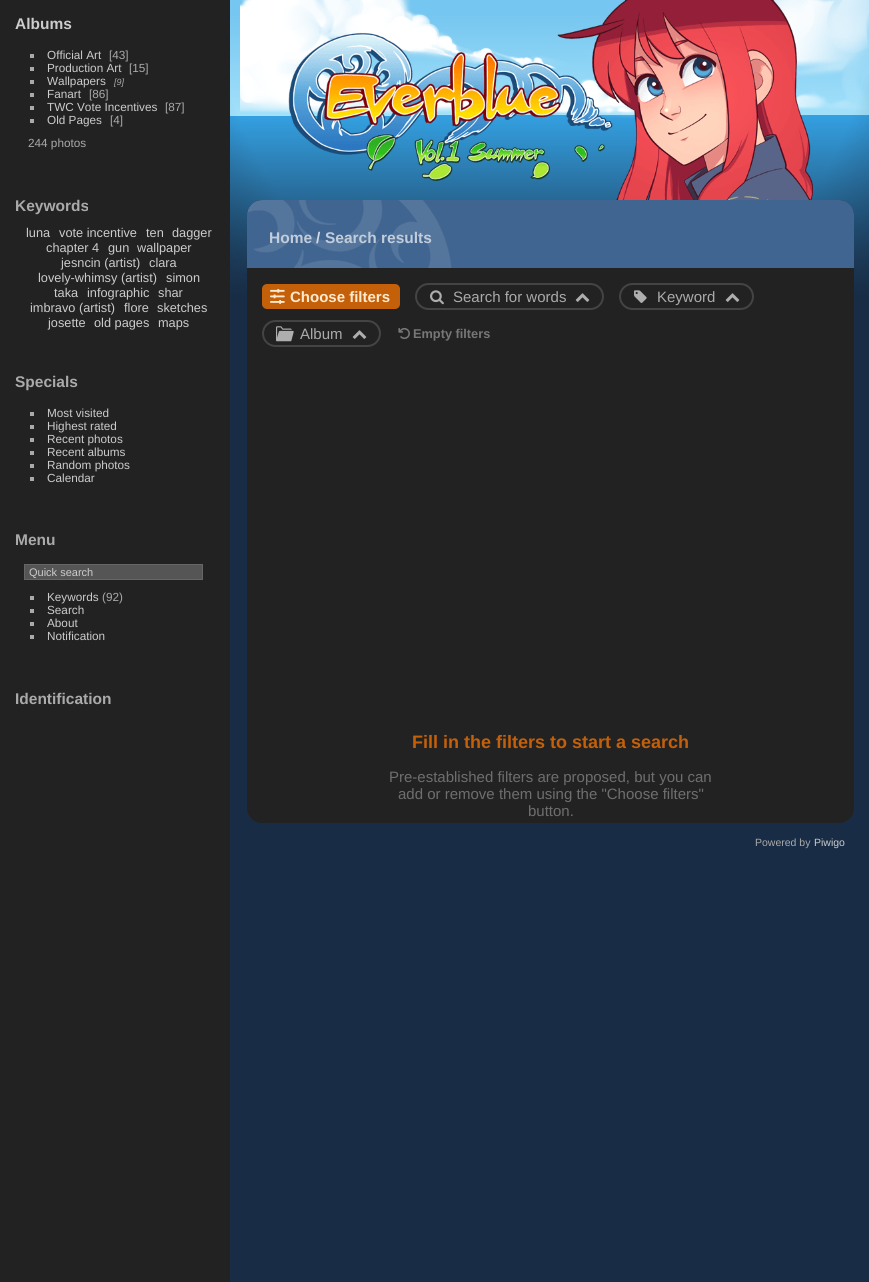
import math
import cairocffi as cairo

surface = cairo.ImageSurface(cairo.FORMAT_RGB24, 869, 1282)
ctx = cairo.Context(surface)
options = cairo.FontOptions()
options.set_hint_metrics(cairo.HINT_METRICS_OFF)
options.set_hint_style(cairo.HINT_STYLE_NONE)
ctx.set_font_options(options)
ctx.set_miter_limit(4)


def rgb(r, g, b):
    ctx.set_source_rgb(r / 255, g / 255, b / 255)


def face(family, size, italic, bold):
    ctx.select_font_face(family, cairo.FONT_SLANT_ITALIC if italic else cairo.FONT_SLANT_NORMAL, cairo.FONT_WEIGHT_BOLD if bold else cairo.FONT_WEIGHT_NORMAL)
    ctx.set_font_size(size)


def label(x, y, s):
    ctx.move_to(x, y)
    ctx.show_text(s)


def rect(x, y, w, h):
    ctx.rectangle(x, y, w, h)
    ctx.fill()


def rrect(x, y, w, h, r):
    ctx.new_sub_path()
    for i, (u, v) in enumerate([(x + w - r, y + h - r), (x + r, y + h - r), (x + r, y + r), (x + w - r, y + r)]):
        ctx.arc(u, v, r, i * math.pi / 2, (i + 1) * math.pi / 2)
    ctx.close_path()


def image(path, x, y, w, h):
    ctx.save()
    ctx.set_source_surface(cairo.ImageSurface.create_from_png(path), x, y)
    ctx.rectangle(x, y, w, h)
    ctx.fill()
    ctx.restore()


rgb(255, 255, 255)
ctx.paint()
gradient = cairo.LinearGradient(544, 0, 545, 1282)
gradient.add_color_stop_rgba(0.01, 0.459, 0.776, 0.941, 1)
gradient.add_color_stop_rgba(0.09, 0.639, 0.882, 0.98, 1)
gradient.add_color_stop_rgba(0.09, 0.204, 0.627, 0.882, 1)
gradient.add_color_stop_rgba(0.16, 0.149, 0.396, 0.569, 1)
gradient.add_color_stop_rgba(0.23, 0.094, 0.173, 0.271, 1)
ctx.set_source(gradient)
rect(230, 0, 639, 1282)
gradient = cairo.RadialGradient(545, 0, 0, 545, 0, 800)
gradient.add_color_stop_rgba(0.41, 0.094, 0.173, 0.271, 0)
gradient.add_color_stop_rgba(0.66, 0.094, 0.173, 0.271, 1)
gradient.add_color_stop_rgba(1, 0.094, 0.173, 0.271, 1)
ctx.set_source(gradient)
rect(230, 75, 639, 215)
rgb(34, 34, 34)
rect(0, 0, 230, 1282)
face('Liberation Sans', 15.5, 0, 1)
rgb(204, 204, 204)
label(15, 29, 'Albums')
rgb(170, 170, 170)
rect(30, 54, 4, 4)
face('Liberation Sans', 11.75, 0, 0)
rgb(204, 204, 204)
label(47, 59, 'Official Art')
rgb(170, 170, 170)
label(109, 59, '[43]')
rect(30, 67, 4, 4)
rgb(204, 204, 204)
label(47, 72, 'Production Art')
rgb(170, 170, 170)
label(129, 72, '[15]')
rect(30, 80, 4, 4)
rgb(204, 204, 204)
label(47, 85, 'Wallpapers')
face('Liberation Sans', 9, 1, 0)
rgb(170, 170, 170)
label(114, 85, '[9]')
rect(30, 93, 4, 4)
face('Liberation Sans', 11.75, 0, 0)
rgb(204, 204, 204)
label(47, 98, 'Fanart')
rgb(170, 170, 170)
label(89, 98, '[86]')
rect(30, 106, 4, 4)
rgb(204, 204, 204)
label(47, 111, 'TWC Vote Incentives')
rgb(170, 170, 170)
label(165, 111, '[87]')
rect(30, 119, 4, 4)
rgb(204, 204, 204)
label(47, 124, 'Old Pages')
rgb(170, 170, 170)
label(110, 124, '[4]')
label(28, 147, '244 photos')
face('Liberation Sans', 15.5, 0, 1)
label(15, 211, 'Keywords')
face('Liberation Sans', 12.75, 0, 0)
rgb(204, 204, 204)
label(26, 237, 'luna')
label(59, 237, 'vote incentive')
label(146, 237, 'ten')
label(172, 237, 'dagger')
label(46, 252, 'chapter 4')
label(108, 252, 'gun')
label(137, 252, 'wallpaper')
label(61, 267, 'jesncin (artist)')
label(149, 267, 'clara')
label(38, 282, 'lovely-whimsy (artist)')
label(166, 282, 'simon')
label(54, 297, 'taka')
label(87, 297, 'infographic')
label(158, 297, 'shar')
label(30, 312, 'imbravo (artist)')
label(124, 312, 'flore')
label(157, 312, 'sketches')
label(48, 327, 'josette')
label(94, 327, 'old pages')
label(158, 327, 'maps')
face('Liberation Sans', 15.5, 0, 1)
rgb(170, 170, 170)
label(15, 387, 'Specials')
rect(30, 412, 4, 4)
face('Liberation Sans', 11.75, 0, 0)
rgb(204, 204, 204)
label(47, 417, 'Most visited')
rgb(170, 170, 170)
rect(30, 425, 4, 4)
rgb(204, 204, 204)
label(47, 430, 'Highest rated')
rgb(170, 170, 170)
rect(30, 438, 4, 4)
rgb(204, 204, 204)
label(47, 443, 'Recent photos')
rgb(170, 170, 170)
rect(30, 451, 4, 4)
rgb(204, 204, 204)
label(47, 456, 'Recent albums')
rgb(170, 170, 170)
rect(30, 464, 4, 4)
rgb(204, 204, 204)
label(47, 469, 'Random photos')
rgb(170, 170, 170)
rect(30, 477, 4, 4)
rgb(204, 204, 204)
label(47, 482, 'Calendar')
face('Liberation Sans', 15.5, 0, 1)
rgb(170, 170, 170)
label(15, 545, 'Menu')
rgb(85, 85, 85)
ctx.rectangle(24.5, 564.5, 178, 15)
ctx.fill_preserve()
rgb(102, 102, 102)
ctx.set_line_width(1)
ctx.stroke()
face('Liberation Sans', 11, 0, 0)
rgb(204, 204, 204)
label(29, 576, 'Quick search')
rgb(170, 170, 170)
rect(30, 596, 4, 4)
face('Liberation Sans', 11.75, 0, 0)
rgb(204, 204, 204)
label(47, 601, 'Keywords')
rgb(170, 170, 170)
label(102, 601, '(92)')
rect(30, 609, 4, 4)
rgb(204, 204, 204)
label(47, 614, 'Search')
rgb(170, 170, 170)
rect(30, 622, 4, 4)
rgb(204, 204, 204)
label(47, 627, 'About')
rgb(170, 170, 170)
rect(30, 635, 4, 4)
rgb(204, 204, 204)
label(47, 640, 'Notification')
face('Liberation Sans', 15.5, 0, 1)
rgb(170, 170, 170)
label(15, 704, 'Identification')
image('image0.png', 240, 0, 629, 118)
image('image1.png', 288, 0, 525, 200)
rgb(34, 34, 34)
rrect(247, 200, 607, 623, 15)
ctx.fill()
rgb(65, 101, 145)
ctx.new_path()
ctx.move_to(262, 200)
ctx.line_to(839, 200)
ctx.curve_to(847.5, 200, 854, 206.5, 854, 215)
ctx.line_to(854, 268)
ctx.line_to(247, 268)
ctx.line_to(247, 215)
ctx.curve_to(247, 206.5, 253.5, 200, 262, 200)
ctx.close_path()
ctx.fill()
image('image2.png', 247, 200, 205, 68)
rgb(194, 205, 219)
label(269, 243, 'Home')
rgb(210, 218, 229)
label(316, 243, '/')
rgb(194, 205, 219)
label(325, 243, 'Search results')
rgb(196, 96, 9)
rrect(262, 284, 138, 25, 5)
ctx.fill()
image('image3.png', 270, 289, 15, 15)
face('Liberation Sans', 15, 0, 1)
rgb(255, 234, 207)
label(290, 302, 'Choose filters')
rrect(416, 284, 187, 25, 12.5)
rgb(68, 68, 68)
ctx.set_line_width(2)
ctx.stroke()
image('image4.png', 430, 290, 14, 15)
face('Liberation Sans', 15, 0, 0)
rgb(170, 170, 170)
label(453, 302, 'Search for words')
image('image5.png', 575, 293, 15, 9)
rrect(620, 284, 133, 25, 12.5)
rgb(68, 68, 68)
ctx.stroke()
image('image6.png', 634, 290, 13, 13)
rgb(170, 170, 170)
label(657, 302, 'Keyword')
image('image5.png', 725, 293, 15, 9)
rrect(263, 321, 117, 25, 12.5)
rgb(68, 68, 68)
ctx.stroke()
image('image7.png', 276, 326, 18, 16)
rgb(170, 170, 170)
label(300, 339, 'Album')
image('image5.png', 352, 330, 15, 9)
image('image8.png', 398, 327, 12, 13)
face('Liberation Sans', 12.75, 0, 1)
rgb(119, 119, 119)
label(413, 338, 'Empty filters')
face('Liberation Sans', 18, 0, 1)
rgb(196, 96, 9)
label(412, 748, 'Fill in the filters to start a search')
face('Liberation Sans', 15, 0, 0)
rgb(110, 110, 110)
label(389, 782, 'Pre-established filters are proposed, but you can')
label(398, 799, 'add or remove them using the "Choose filters"')
label(528, 816, 'button.')
face('Liberation Sans', 10.5, 0, 0)
rgb(170, 170, 170)
label(755, 846, 'Powered by')
rgb(204, 204, 204)
label(814, 846, 'Piwigo')
surface.write_to_png('render.png')
